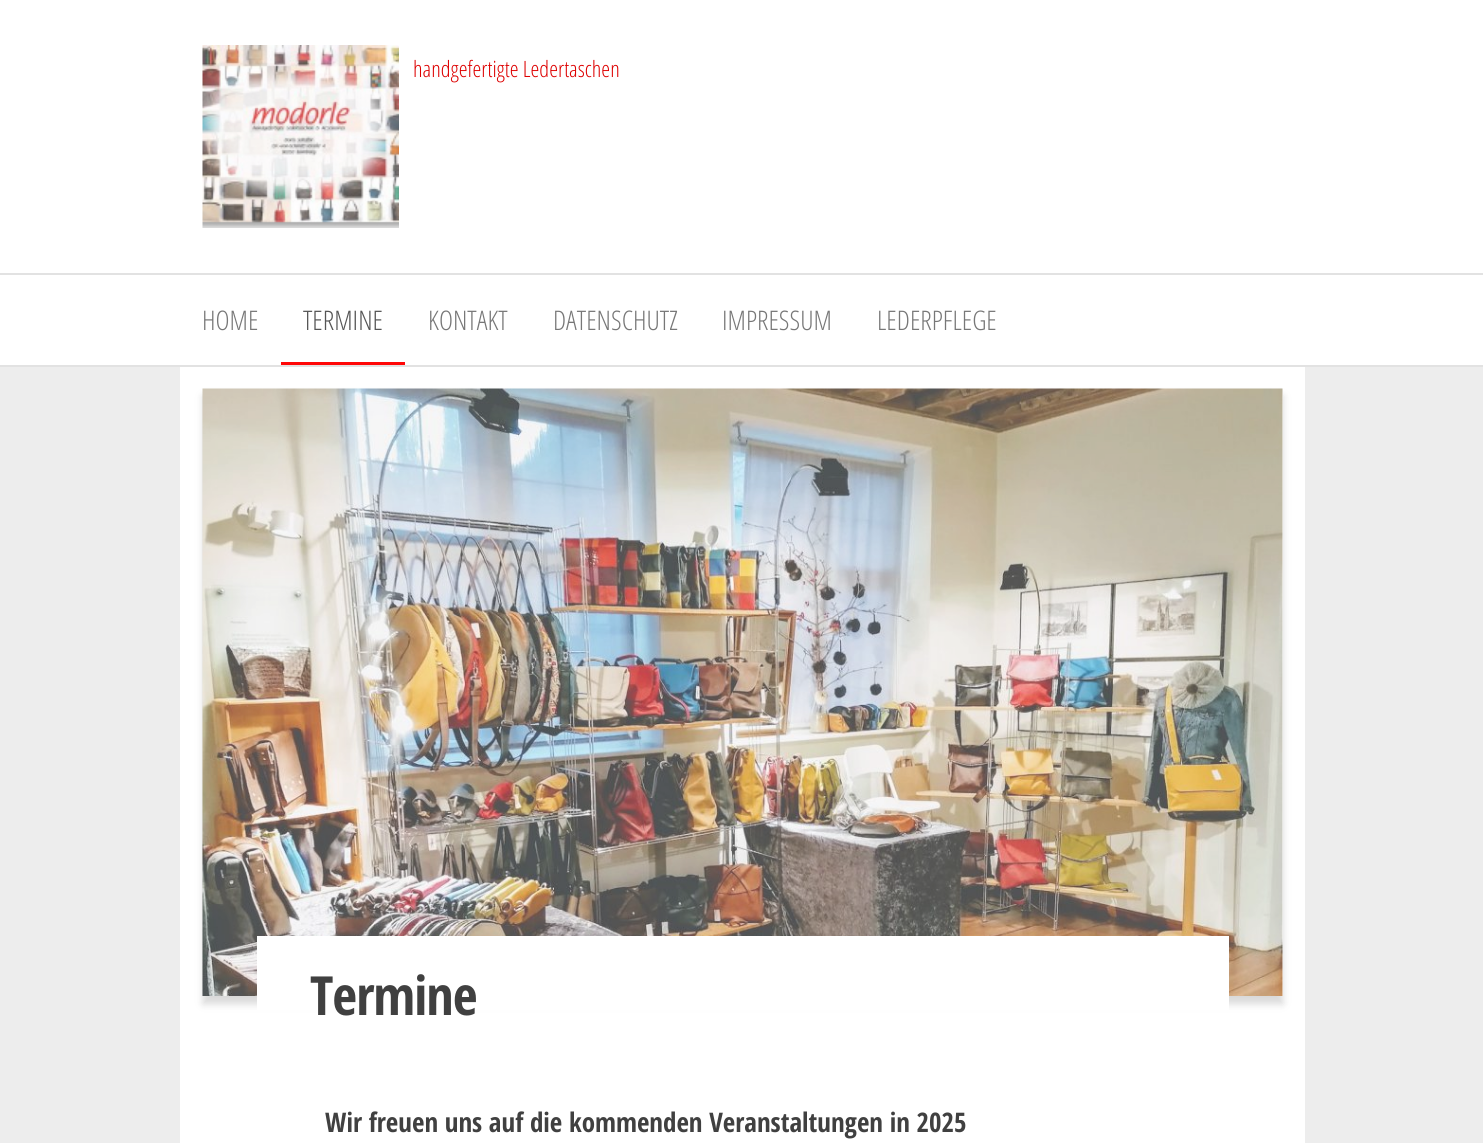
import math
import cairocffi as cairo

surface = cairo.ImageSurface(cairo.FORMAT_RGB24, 1483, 1143)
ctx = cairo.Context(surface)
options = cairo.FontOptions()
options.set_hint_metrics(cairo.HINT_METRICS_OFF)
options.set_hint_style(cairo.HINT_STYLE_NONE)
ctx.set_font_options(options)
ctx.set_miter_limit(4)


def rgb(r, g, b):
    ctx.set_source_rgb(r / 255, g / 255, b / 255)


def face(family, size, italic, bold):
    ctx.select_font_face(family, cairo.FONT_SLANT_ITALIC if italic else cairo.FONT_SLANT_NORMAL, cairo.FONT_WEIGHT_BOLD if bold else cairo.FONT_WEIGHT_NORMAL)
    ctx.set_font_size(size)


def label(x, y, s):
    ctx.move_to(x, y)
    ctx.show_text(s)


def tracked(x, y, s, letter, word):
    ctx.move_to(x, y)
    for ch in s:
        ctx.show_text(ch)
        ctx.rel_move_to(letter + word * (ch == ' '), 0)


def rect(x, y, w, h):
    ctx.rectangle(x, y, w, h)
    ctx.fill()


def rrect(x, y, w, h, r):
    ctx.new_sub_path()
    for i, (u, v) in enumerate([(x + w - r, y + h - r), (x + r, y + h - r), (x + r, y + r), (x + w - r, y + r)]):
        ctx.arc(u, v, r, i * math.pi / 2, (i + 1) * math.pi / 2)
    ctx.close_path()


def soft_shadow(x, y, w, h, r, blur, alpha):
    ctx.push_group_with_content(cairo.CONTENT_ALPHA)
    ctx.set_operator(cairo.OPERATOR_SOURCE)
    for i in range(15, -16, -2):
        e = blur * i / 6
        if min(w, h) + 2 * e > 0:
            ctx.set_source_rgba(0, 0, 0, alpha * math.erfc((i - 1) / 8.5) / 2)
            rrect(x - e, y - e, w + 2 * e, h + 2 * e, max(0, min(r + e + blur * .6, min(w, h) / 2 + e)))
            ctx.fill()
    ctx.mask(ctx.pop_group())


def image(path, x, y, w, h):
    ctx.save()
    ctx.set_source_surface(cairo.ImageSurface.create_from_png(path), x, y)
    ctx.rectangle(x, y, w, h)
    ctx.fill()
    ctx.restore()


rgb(237, 237, 237)
ctx.paint()
rgb(255, 255, 255)
rect(0, 0, 1483, 273)
image('image0.png', 202, 45, 197, 183)
face('Open Sans Condensed Light', 22.5, 0, 0)
rgb(221, 0, 0)
label(413, 77, 'handgefertigte Ledertaschen')
rgb(255, 255, 255)
rect(0, 275, 1483, 90)
rgb(226, 226, 226)
rect(0, 273, 1483, 2)
rect(0, 365, 1483, 2)
face('Open Sans Condensed Light', 27, 0, 0)
rgb(119, 119, 119)
label(202, 330, 'HOME')
rgb(85, 85, 85)
label(303, 330, 'TERMINE')
rgb(255, 7, 7)
rect(281, 362, 124, 3)
rgb(119, 119, 119)
label(428, 330, 'KONTAKT')
label(553, 330, 'DATENSCHUTZ')
label(722, 330, 'IMPRESSUM')
label(877, 330, 'LEDERPFLEGE')
rgb(255, 255, 255)
rect(180, 367, 1125, 776)
ctx.save()
ctx.set_fill_rule(cairo.FILL_RULE_EVEN_ODD)
ctx.new_path()
ctx.move_to(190, 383)
ctx.line_to(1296, 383)
ctx.line_to(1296, 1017)
ctx.line_to(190, 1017)
ctx.close_path()
ctx.move_to(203, 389)
ctx.line_to(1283, 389)
ctx.line_to(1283, 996)
ctx.line_to(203, 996)
ctx.close_path()
ctx.clip()
rgb(64, 64, 64)
soft_shadow(203, 396, 1080, 608, 0, 4, 0.2)
ctx.restore()
image('image1.png', 202, 388, 1081, 608)
rect(257, 936, 972, 74)
face('Open Sans Condensed', 54, 0, 1)
rgb(64, 64, 64)
tracked(310, 1015, 'Termine', -1, 0)
face('Open Sans Condensed', 27, 0, 1)
label(325, 1132, 'Wir freuen uns auf die kommenden Veranstaltungen in 2025')
surface.write_to_png('render.png')
